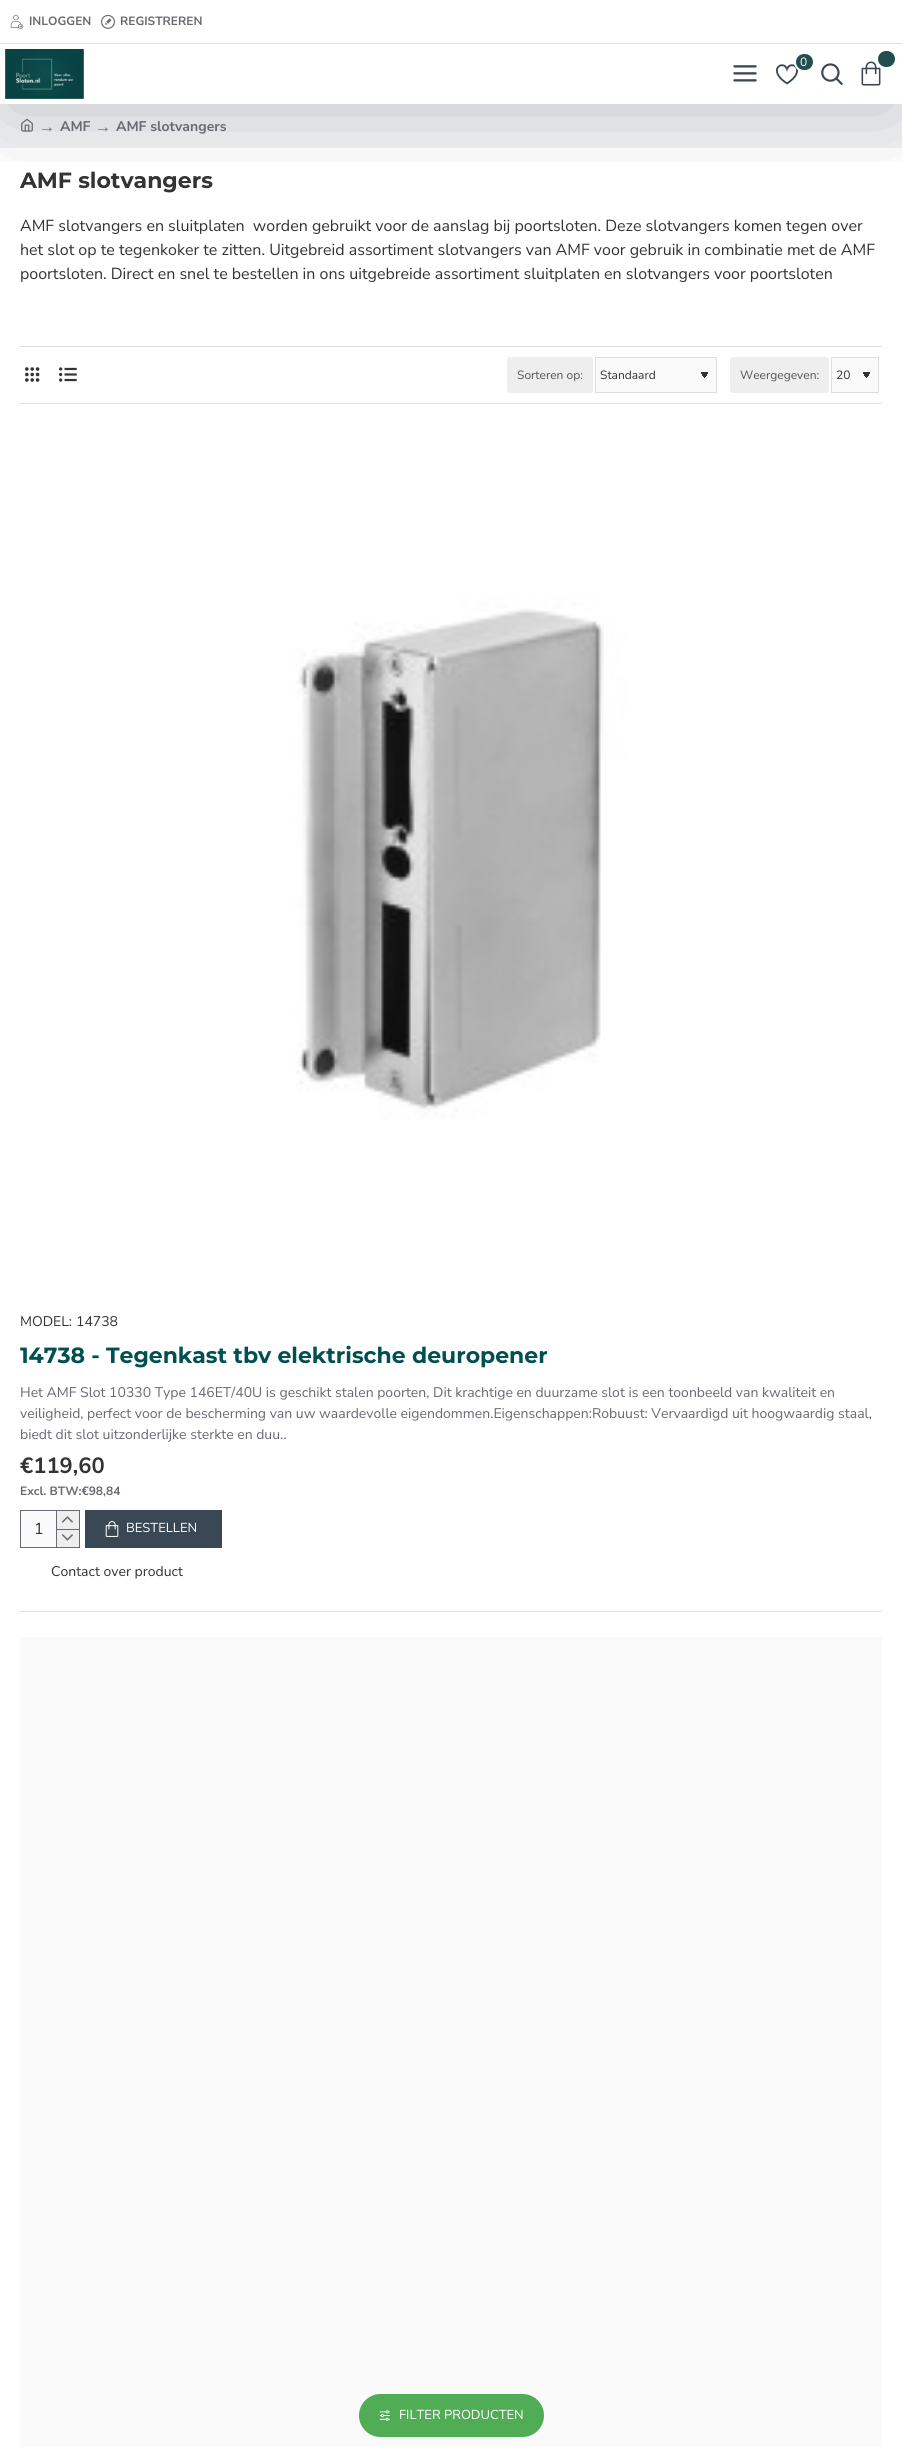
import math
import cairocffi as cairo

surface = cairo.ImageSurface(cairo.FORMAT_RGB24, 902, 2447)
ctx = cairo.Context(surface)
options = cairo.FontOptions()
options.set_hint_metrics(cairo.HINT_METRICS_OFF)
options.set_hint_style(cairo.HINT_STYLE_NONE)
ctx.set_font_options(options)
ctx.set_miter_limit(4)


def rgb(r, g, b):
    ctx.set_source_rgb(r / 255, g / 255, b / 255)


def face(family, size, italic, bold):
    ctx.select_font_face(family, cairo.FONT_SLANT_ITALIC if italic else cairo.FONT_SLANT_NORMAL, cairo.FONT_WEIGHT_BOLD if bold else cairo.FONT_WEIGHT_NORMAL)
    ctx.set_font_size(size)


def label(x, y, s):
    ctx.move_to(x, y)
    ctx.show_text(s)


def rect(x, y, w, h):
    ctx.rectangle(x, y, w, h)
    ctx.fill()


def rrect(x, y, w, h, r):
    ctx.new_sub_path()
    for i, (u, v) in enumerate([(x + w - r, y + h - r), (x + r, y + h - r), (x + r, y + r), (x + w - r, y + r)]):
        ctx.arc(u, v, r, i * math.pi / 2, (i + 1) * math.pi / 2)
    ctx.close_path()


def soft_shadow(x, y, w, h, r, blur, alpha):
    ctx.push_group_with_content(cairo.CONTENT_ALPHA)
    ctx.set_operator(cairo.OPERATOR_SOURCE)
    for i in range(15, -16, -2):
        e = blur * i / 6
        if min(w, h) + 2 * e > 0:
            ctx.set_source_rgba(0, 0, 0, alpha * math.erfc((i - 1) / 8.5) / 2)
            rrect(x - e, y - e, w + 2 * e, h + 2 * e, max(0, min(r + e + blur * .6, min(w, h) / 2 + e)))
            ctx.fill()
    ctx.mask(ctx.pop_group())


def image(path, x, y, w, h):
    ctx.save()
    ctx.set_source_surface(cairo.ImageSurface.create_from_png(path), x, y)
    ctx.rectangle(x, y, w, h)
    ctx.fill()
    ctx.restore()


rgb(255, 255, 255)
ctx.paint()
rgb(240, 242, 245)
rect(0, 104, 902, 44)
image('image7.png', 21, 118, 12, 14)
ctx.save()
ctx.rectangle(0, 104, 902, 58)
ctx.clip()
rgb(0, 0, 0)
soft_shadow(10, 69, 882, 40, 0, 45, 0.2)
ctx.restore()
rgb(255, 255, 255)
rect(0, 0, 902, 43)
rgb(221, 221, 221)
rect(0, 43, 902, 1)
image('image0.png', 10, 14, 14, 15)
face('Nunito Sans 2 ExtraLight', 12, 0, 0)
rgb(105, 105, 115)
label(29, 25, 'INLOGGEN')
image('image1.png', 101, 14, 14, 15)
label(120, 25, 'REGISTREREN')
image('image2.png', 5, 49, 79, 50)
image('image3.png', 776, 64, 22, 21)
rgb(34, 78, 80)
rrect(795, 53, 19, 18, 9)
ctx.fill_preserve()
rgb(255, 255, 255)
ctx.stroke()
face('Nunito Sans ExtraLight', 12, 0, 0)
label(800, 66, '0')
image('image4.png', 861, 61, 20, 25)
rgb(34, 78, 80)
rrect(877, 50, 19, 18, 9)
ctx.fill_preserve()
rgb(255, 255, 255)
ctx.stroke()
image('image5.png', 733, 65, 24, 17)
image('image6.png', 821, 63, 22, 22)
face('Liberation Serif', 16, 0, 0)
rgb(105, 105, 115)
label(39, 132, '→')
face('Nunito Sans 2 ExtraLight', 14, 0, 0)
label(60, 131, 'AMF')
face('Liberation Serif', 16, 0, 0)
label(95, 132, '→')
face('Nunito Sans 2 ExtraLight', 14, 0, 0)
label(116, 131, 'AMF slotvangers')
face('Montserrat Thin', 22, 0, 0)
rgb(51, 51, 51)
label(20, 188, 'AMF slotvangers')
face('Nunito Sans ExtraLight', 16, 0, 0)
label(20, 231, 'AMF slotvangers en sluitplaten  worden gebruikt voor de aanslag bij poortsloten. Deze slotvangers komen tegen over')
label(20, 255, 'het slot op te tegenkoker te zitten. Uitgebreid assortiment slotvangers van AMF voor gebruik in combinatie met de AMF')
label(20, 279, 'poortsloten. Direct en snel te bestellen in ons uitgebreide assortiment sluitplaten en slotvangers voor poortsloten')
rgb(221, 221, 221)
rect(20, 346, 862, 1)
rect(20, 403, 862, 1)
image('image8.png', 25, 367, 15, 15)
image('image9.png', 59, 367, 18, 15)
rgb(238, 238, 238)
rrect(507, 357, 86, 36, 3)
ctx.fill()
face('Nunito Sans ExtraLight', 12, 0, 0)
rgb(85, 85, 85)
label(517, 379, 'Sorteren op:')
rgb(250, 250, 250)
rect(596, 358, 120, 34)
gradient = cairo.LinearGradient(711, 371, 698, 379)
gradient.add_color_stop_rgba(0.63, 0.2, 0.2, 0.2, 1)
gradient.add_color_stop_rgba(0.63, 0.98, 0.98, 0.98, 1)
ctx.set_source(gradient)
rect(697, 372, 15, 6)
gradient = cairo.LinearGradient(698, 371, 711, 379)
gradient.add_color_stop_rgba(0.63, 0.98, 0.98, 0.98, 0)
gradient.add_color_stop_rgba(0.63, 0.98, 0.98, 0.98, 1)
ctx.set_source(gradient)
rect(697, 372, 15, 6)
ctx.rectangle(595.5, 357.5, 121, 35)
rgb(221, 221, 221)
ctx.set_line_width(1)
ctx.stroke()
rgb(51, 51, 51)
label(600, 379, 'Standaard')
rgb(238, 238, 238)
rrect(730, 357, 99, 36, 3)
ctx.fill()
rgb(85, 85, 85)
label(740, 379, 'Weergegeven:')
rgb(250, 250, 250)
rect(832, 358, 46, 34)
gradient = cairo.LinearGradient(873, 371, 860, 379)
gradient.add_color_stop_rgba(0.63, 0.2, 0.2, 0.2, 1)
gradient.add_color_stop_rgba(0.63, 0.98, 0.98, 0.98, 1)
ctx.set_source(gradient)
rect(859, 372, 15, 6)
gradient = cairo.LinearGradient(860, 371, 873, 379)
gradient.add_color_stop_rgba(0.63, 0.98, 0.98, 0.98, 0)
gradient.add_color_stop_rgba(0.63, 0.98, 0.98, 0.98, 1)
ctx.set_source(gradient)
rect(859, 372, 15, 6)
ctx.rectangle(831.5, 357.5, 47, 35)
rgb(221, 221, 221)
ctx.stroke()
rgb(51, 51, 51)
label(836, 379, '20')
rgb(221, 221, 221)
rect(20, 1611, 862, 1)
image('image10.png', 20, 429, 862, 862)
face('Nunito Sans ExtraLight', 14, 0, 0)
rgb(51, 51, 51)
label(20, 1326, 'MODEL:')
label(76, 1326, '14738')
face('Montserrat Thin', 22, 0, 0)
rgb(0, 79, 81)
label(20, 1363, '14738 - Tegenkast tbv elektrische deuropener')
face('Nunito Sans ExtraLight', 14, 0, 0)
rgb(105, 105, 115)
label(20, 1397, 'Het AMF Slot 10330 Type 146ET/40U is geschikt stalen poorten, Dit krachtige en duurzame slot is een toonbeeld van kwaliteit en')
label(20, 1418, 'veiligheid, perfect voor de bescherming van uw waardevolle eigendommen.Eigenschappen:Robuust: Vervaardigd uit hoogwaardig staal,')
label(20, 1439, 'biedt dit slot uitzonderlijke sterkte en duu..')
face('Nunito Sans 2 ExtraLight', 22, 0, 0)
rgb(51, 51, 51)
label(20, 1473, '€119,60')
face('Nunito Sans 2 ExtraLight', 12, 0, 0)
rgb(105, 105, 115)
label(20, 1495, 'Excl. BTW:€98,84')
ctx.rectangle(20.5, 1510.5, 59, 37)
ctx.stroke()
rgb(250, 250, 250)
rect(21, 1511, 35, 36)
face('Nunito Sans ExtraLight', 16, 0, 0)
rgb(51, 51, 51)
label(34, 1534, '1')
rgb(238, 238, 238)
rect(57, 1511, 22, 18)
rgb(105, 105, 115)
rect(56, 1511, 1, 18)
image('image11.png', 61, 1516, 12, 7)
rgb(238, 238, 238)
rect(57, 1530, 22, 17)
rgb(105, 105, 115)
rect(56, 1529, 23, 1)
rect(56, 1529, 1, 18)
image('image12.png', 61, 1534, 12, 7)
rgb(58, 71, 84)
rect(85, 1510, 137, 38)
image('image13.png', 105, 1521, 14, 16)
face('Nunito Sans ExtraLight', 13, 0, 0)
rgb(255, 255, 255)
label(126, 1532, 'BESTELLEN')
face('Nunito Sans ExtraLight', 14, 0, 0)
rgb(51, 51, 51)
label(51, 1576, 'Contact over product')
rgb(250, 250, 250)
rect(20, 1637, 862, 810)
rgb(80, 173, 85)
rrect(359, 2394, 185, 43, 21.5)
ctx.fill()
image('image14.png', 379, 2410, 11, 11)
face('Nunito Sans ExtraLight', 13, 0, 0)
rgb(255, 255, 255)
label(399, 2419, 'FILTER PRODUCTEN')
surface.write_to_png('render.png')
